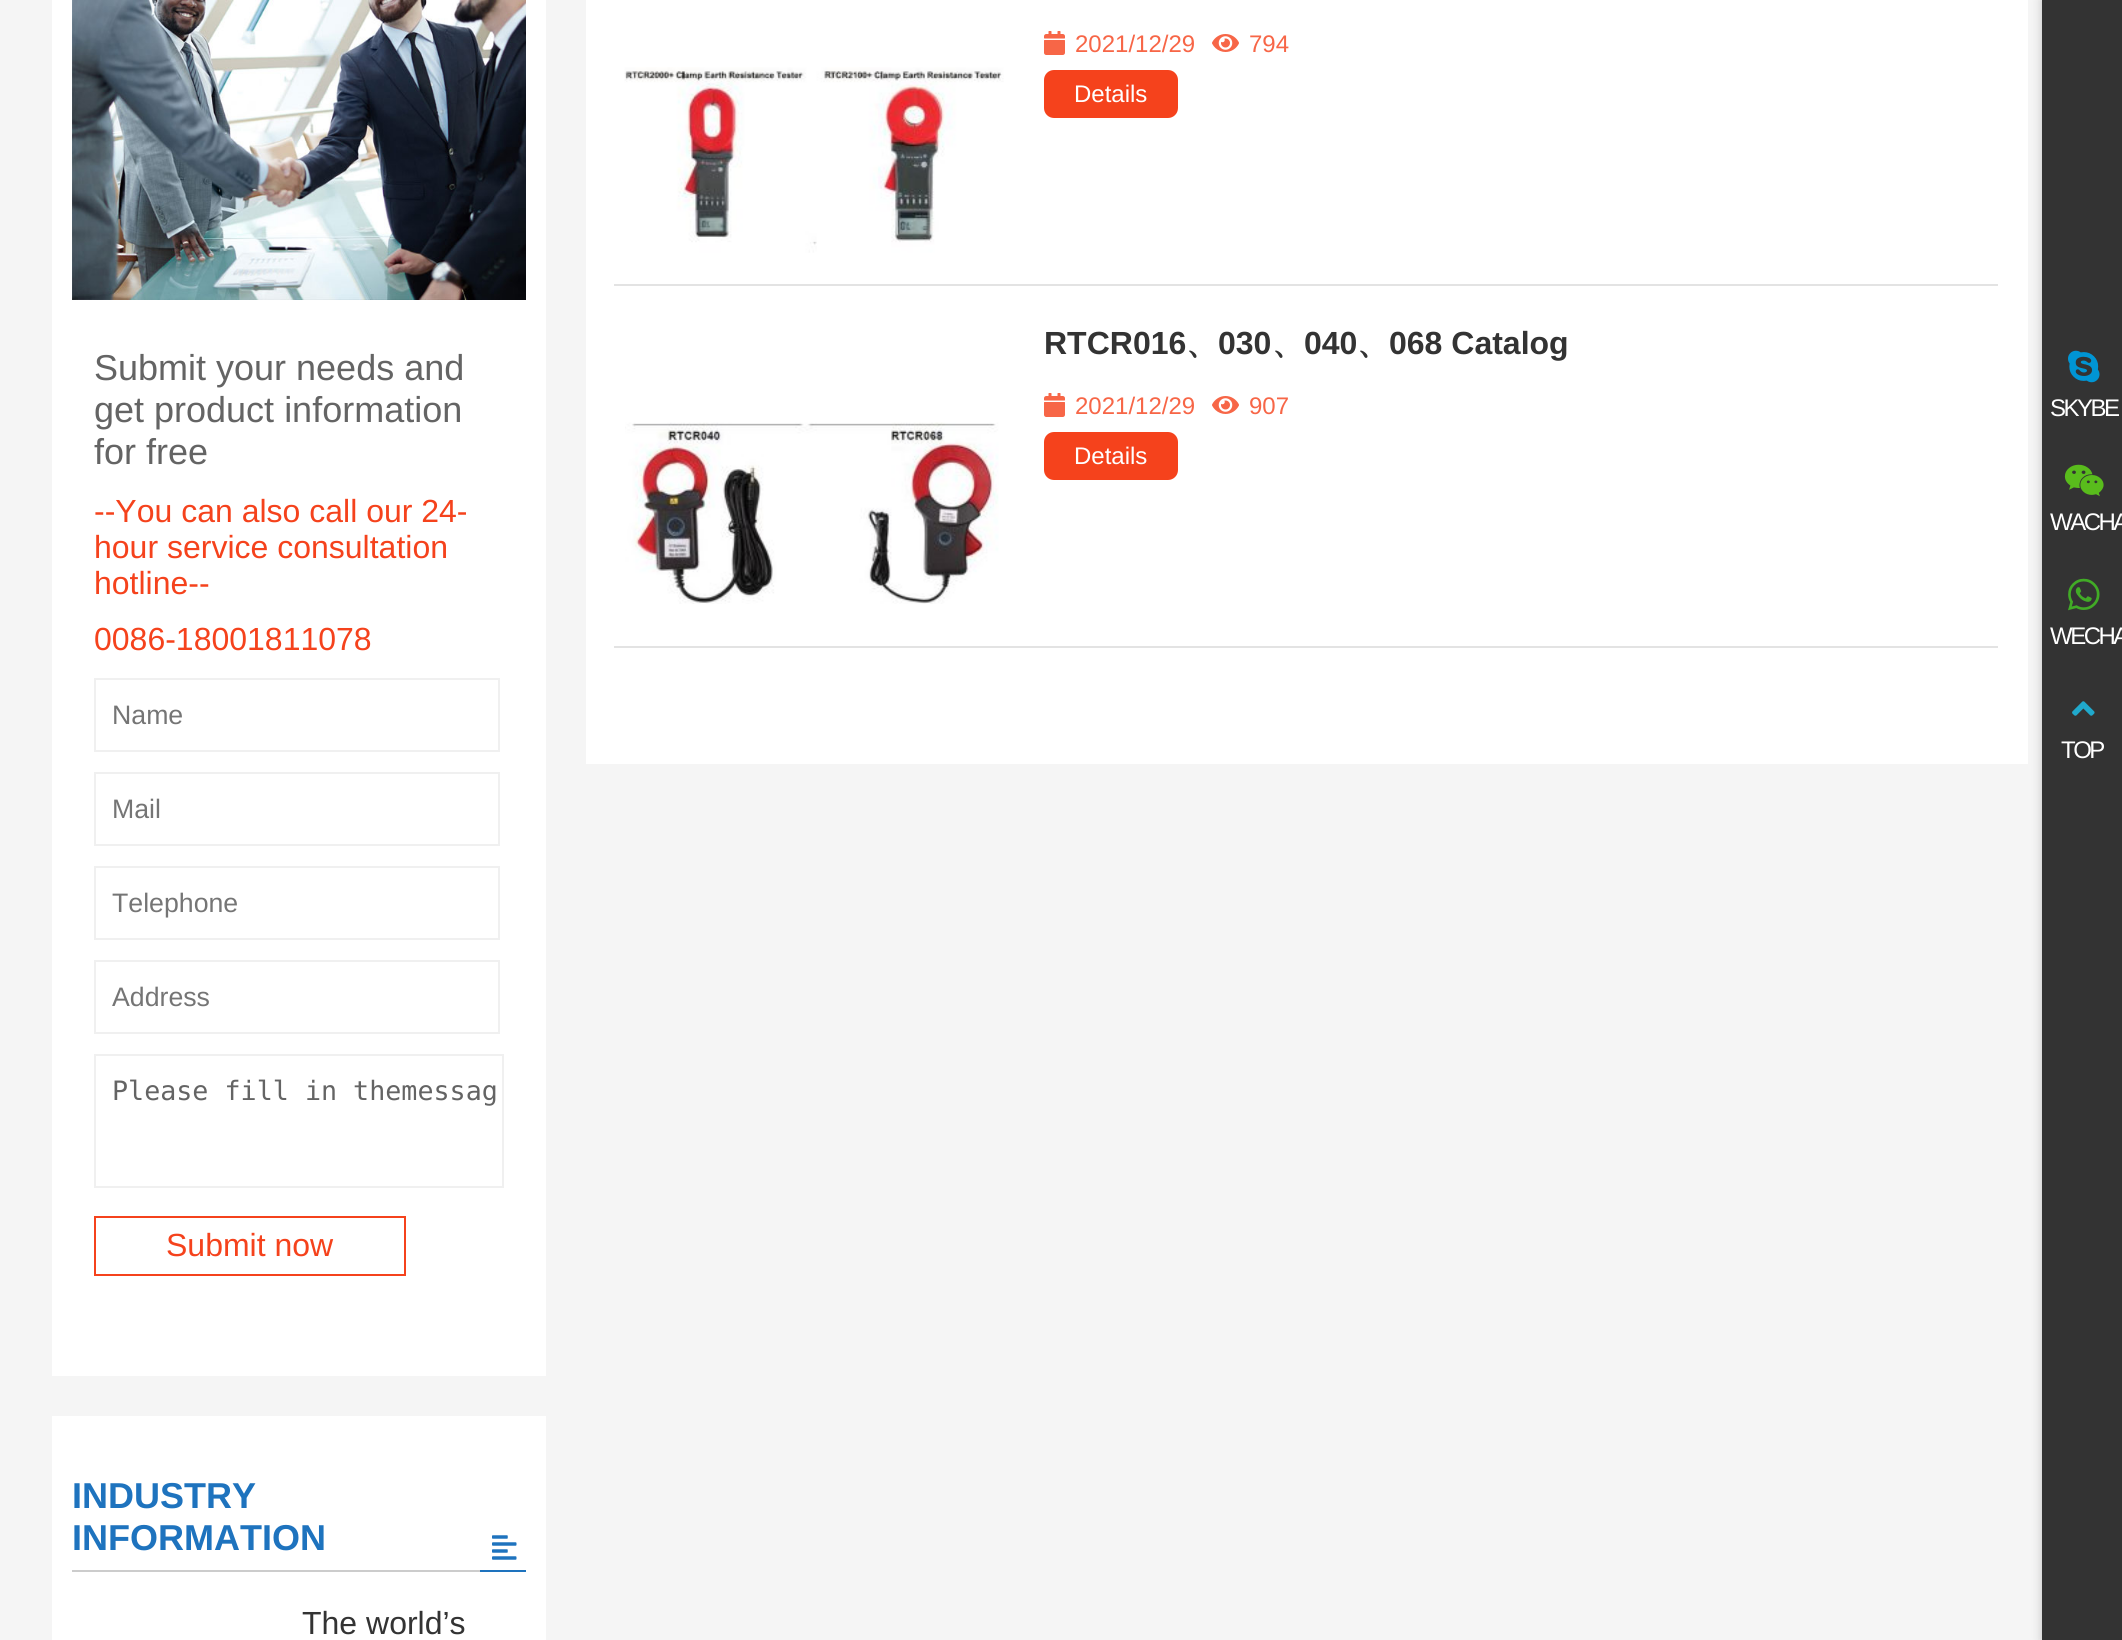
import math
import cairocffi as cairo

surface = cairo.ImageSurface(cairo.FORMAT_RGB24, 2122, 1640)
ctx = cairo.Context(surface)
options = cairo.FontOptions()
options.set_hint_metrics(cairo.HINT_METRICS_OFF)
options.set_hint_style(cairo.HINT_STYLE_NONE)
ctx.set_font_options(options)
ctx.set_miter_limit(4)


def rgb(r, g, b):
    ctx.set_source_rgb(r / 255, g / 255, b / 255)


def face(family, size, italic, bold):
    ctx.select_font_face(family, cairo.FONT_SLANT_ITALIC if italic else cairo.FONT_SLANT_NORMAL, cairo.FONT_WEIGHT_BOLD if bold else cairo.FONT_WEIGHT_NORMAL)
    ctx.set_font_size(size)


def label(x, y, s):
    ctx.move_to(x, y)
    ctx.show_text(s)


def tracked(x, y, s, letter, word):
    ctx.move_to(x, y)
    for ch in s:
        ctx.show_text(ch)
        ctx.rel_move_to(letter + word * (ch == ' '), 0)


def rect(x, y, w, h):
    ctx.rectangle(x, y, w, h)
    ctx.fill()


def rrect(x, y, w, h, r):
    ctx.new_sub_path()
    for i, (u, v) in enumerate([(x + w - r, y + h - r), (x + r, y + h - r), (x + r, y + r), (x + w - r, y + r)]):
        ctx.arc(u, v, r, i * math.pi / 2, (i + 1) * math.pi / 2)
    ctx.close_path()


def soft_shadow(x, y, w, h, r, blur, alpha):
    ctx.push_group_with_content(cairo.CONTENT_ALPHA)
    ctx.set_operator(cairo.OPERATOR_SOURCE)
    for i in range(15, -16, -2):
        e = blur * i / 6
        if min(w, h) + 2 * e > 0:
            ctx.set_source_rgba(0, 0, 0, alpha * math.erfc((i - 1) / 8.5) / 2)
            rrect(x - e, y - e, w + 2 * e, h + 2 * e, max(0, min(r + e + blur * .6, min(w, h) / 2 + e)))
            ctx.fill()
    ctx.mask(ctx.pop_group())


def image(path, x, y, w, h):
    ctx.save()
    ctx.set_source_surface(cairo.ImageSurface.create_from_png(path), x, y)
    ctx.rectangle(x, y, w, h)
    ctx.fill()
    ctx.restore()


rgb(245, 245, 245)
ctx.paint()
rgb(255, 255, 255)
rect(586, 0, 1442, 764)
rgb(227, 227, 227)
rect(614, 284, 1384, 2)
image('image0.png', 624, 67, 380, 186)
image('image1.png', 1044, 31, 21, 24)
face('Liberation Sans', 24, 0, 0)
rgb(247, 102, 71)
label(1075, 52, '2021/12/29')
image('image2.png', 1212, 34, 27, 18)
label(1249, 52, '794')
rgb(245, 66, 28)
rrect(1044, 70, 134, 48, 10)
ctx.fill()
rgb(255, 255, 255)
label(1074, 102, 'Details')
rgb(227, 227, 227)
rect(614, 646, 1384, 2)
face('Liberation Sans', 32, 0, 1)
rgb(51, 51, 51)
label(1044, 354, 'RTCR016')
face('WenQuanYi Zen Hei', 32, 0, 1)
label(1186, 354, '、')
face('Liberation Sans', 32, 0, 1)
label(1218, 354, '030')
face('WenQuanYi Zen Hei', 32, 0, 1)
label(1272, 354, '、')
face('Liberation Sans', 32, 0, 1)
label(1304, 354, '040')
face('WenQuanYi Zen Hei', 32, 0, 1)
label(1357, 354, '、')
face('Liberation Sans', 32, 0, 1)
label(1389, 354, '068 Catalog')
image('image1.png', 1044, 393, 21, 24)
face('Liberation Sans', 24, 0, 0)
rgb(247, 102, 71)
label(1075, 414, '2021/12/29')
image('image2.png', 1212, 396, 27, 18)
label(1249, 414, '907')
rgb(245, 66, 28)
rrect(1044, 432, 134, 48, 10)
ctx.fill()
rgb(255, 255, 255)
label(1074, 464, 'Details')
image('image3.png', 625, 422, 374, 182)
rect(52, 0, 494, 1376)
image('image4.png', 72, 0, 454, 300)
face('Liberation Sans', 36, 0, 0)
rgb(100, 100, 100)
label(94, 380, 'Submit your needs and')
label(94, 422, 'get product information')
label(94, 464, 'for free')
face('Liberation Sans', 32, 0, 0)
rgb(245, 66, 28)
label(94, 522, '--You can also call our 24-')
label(94, 558, 'hour service consultation')
label(94, 594, 'hotline--')
label(94, 650, '0086-18001811078')
ctx.rectangle(95, 679, 404, 72)
rgb(240, 240, 240)
ctx.stroke()
face('Liberation Sans', 26.7, 0, 0)
rgb(117, 117, 117)
label(112, 724, 'Name')
ctx.rectangle(95, 773, 404, 72)
rgb(240, 240, 240)
ctx.stroke()
rgb(117, 117, 117)
label(112, 818, 'Mail')
ctx.rectangle(95, 867, 404, 72)
rgb(240, 240, 240)
ctx.stroke()
rgb(117, 117, 117)
label(112, 912, 'Telephone')
ctx.rectangle(95, 961, 404, 72)
rgb(240, 240, 240)
ctx.stroke()
rgb(117, 117, 117)
label(112, 1006, 'Address')
ctx.rectangle(95, 1055, 408, 132)
rgb(240, 240, 240)
ctx.stroke()
face('DejaVu Sans Mono', 26.7, 0, 0)
rgb(100, 100, 100)
label(112, 1100, 'Please fill in themessag')
ctx.rectangle(95, 1217, 310, 58)
rgb(245, 66, 28)
ctx.stroke()
face('Liberation Sans', 32, 0, 0)
label(166, 1256, 'Submit now')
rgb(255, 255, 255)
rect(52, 1416, 494, 224)
face('Liberation Sans', 36, 0, 1)
rgb(30, 115, 190)
label(72, 1508, 'INDUSTRY')
label(72, 1550, 'INFORMATION')
image('image5.png', 492, 1535, 25, 25)
rgb(204, 204, 204)
rect(72, 1570, 408, 2)
rgb(30, 115, 190)
rect(480, 1570, 46, 2)
face('Liberation Sans', 32, 0, 0)
rgb(51, 51, 51)
label(302, 1634, 'The world’s')
rgb(141, 141, 141)
soft_shadow(2042, 0, 80, 1640, 0, 5, 0.5)
rgb(51, 51, 51)
rect(2042, 0, 80, 1640)
image('image6.png', 2068, 350, 32, 33)
face('Liberation Sans', 24, 0, 0)
rgb(255, 255, 255)
tracked(2050, 416, 'SKYBE', -2.5, 0)
image('image7.png', 2064, 464, 40, 33)
tracked(2050, 530, 'WACHA', -2.5, 0)
image('image8.png', 2068, 578, 32, 33)
tracked(2050, 644, 'WECHA', -2.5, 0)
image('image9.png', 2072, 701, 23, 15)
tracked(2061, 758, 'TOP', -2.5, 0)
surface.write_to_png('render.png')
